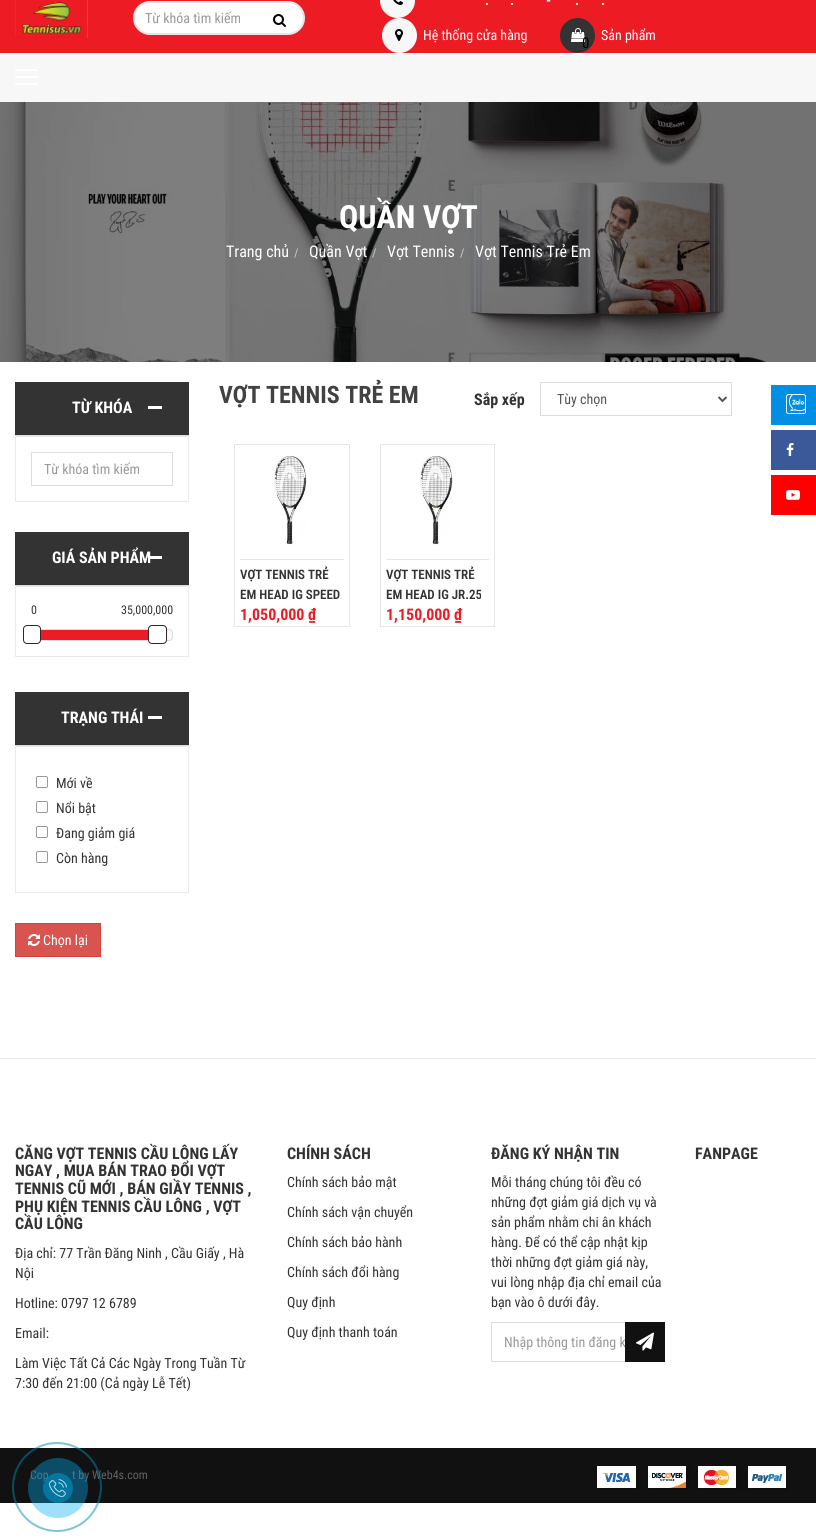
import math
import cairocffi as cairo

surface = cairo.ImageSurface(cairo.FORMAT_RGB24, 816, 1540)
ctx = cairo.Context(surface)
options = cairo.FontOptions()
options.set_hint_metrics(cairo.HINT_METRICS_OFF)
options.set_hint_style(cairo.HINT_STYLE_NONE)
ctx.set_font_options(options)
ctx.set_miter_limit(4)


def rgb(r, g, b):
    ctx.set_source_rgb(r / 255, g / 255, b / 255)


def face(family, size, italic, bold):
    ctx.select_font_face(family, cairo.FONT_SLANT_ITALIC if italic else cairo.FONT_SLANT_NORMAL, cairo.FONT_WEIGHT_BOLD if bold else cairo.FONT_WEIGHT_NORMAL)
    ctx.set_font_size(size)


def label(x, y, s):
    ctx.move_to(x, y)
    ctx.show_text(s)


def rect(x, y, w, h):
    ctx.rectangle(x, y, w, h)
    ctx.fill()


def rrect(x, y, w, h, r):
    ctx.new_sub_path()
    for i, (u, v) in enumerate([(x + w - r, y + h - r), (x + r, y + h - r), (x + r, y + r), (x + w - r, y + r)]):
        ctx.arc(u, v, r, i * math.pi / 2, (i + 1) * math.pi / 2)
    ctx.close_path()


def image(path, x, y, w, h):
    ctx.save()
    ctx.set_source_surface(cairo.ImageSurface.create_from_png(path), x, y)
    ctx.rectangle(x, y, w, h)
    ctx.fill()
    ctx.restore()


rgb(255, 255, 255)
ctx.paint()
rgb(237, 27, 35)
rect(0, 0, 816, 53)
image('image0.png', 15, 0, 73, 38)
rgb(255, 255, 255)
rrect(134, 2, 170, 32, 16)
ctx.fill_preserve()
rgb(230, 230, 230)
ctx.stroke()
face('Roboto Condensed', 14, 0, 0)
rgb(153, 153, 153)
label(145, 23, 'Từ khóa tìm kiếm')
image('image1.png', 273, 14, 13, 13)
rgb(247, 247, 247)
ctx.arc(397.5, 0.5, 17.5, 0, 2 * math.pi)
ctx.fill()
image('image2.png', 393, 0, 10, 5)
face('Roboto Condensed', 14, 0, 1)
rgb(255, 255, 255)
label(546, 5, '-')
label(485, 5, '.')
label(510, 5, '.')
label(575, 5, '.')
label(601, 5, '.')
rgb(247, 247, 247)
ctx.new_path()
ctx.arc(399.5, 35.5, 17.5, 0, 2 * math.pi)
ctx.fill()
image('image3.png', 395, 29, 8, 12)
face('Roboto Condensed', 14, 0, 0)
rgb(255, 255, 255)
label(423, 40, 'Hệ thống cửa hàng')
rgb(51, 51, 51)
ctx.new_path()
ctx.arc(577.5, 35.5, 17.5, 0, 2 * math.pi)
ctx.fill()
image('image4.png', 571, 28, 14, 14)
rgb(255, 255, 255)
label(601, 40, 'Sản phẩm')
face('Roboto Condensed', 15, 0, 0)
rgb(0, 0, 0)
label(582, 48, '0')
rgb(247, 247, 247)
rect(0, 53, 816, 49)
rgb(255, 255, 255)
rect(15, 76, 23, 2)
rect(15, 69, 23, 2)
rect(15, 83, 23, 2)
image('image5.png', 0, 102, 816, 260)
face('Roboto Condensed', 32, 0, 1)
label(339, 228, 'QUẦN VỢT')
face('Roboto Condensed', 16, 0, 0)
label(226, 257, 'Trang chủ')
face('Roboto Condensed', 12, 0, 0)
rgb(204, 204, 204)
label(294, 257, '/')
face('Roboto Condensed', 16, 0, 0)
rgb(255, 255, 255)
label(309, 257, 'Quần Vợt')
face('Roboto Condensed', 12, 0, 0)
rgb(204, 204, 204)
label(372, 257, '/')
face('Roboto Condensed', 16, 0, 0)
rgb(255, 255, 255)
label(387, 257, 'Vợt Tennis')
face('Roboto Condensed', 12, 0, 0)
rgb(204, 204, 204)
label(460, 257, '/')
face('Roboto Condensed', 16, 0, 0)
rgb(255, 255, 255)
label(475, 257, 'Vợt Tennis Trẻ Em')
rgb(51, 51, 51)
rect(15, 382, 174, 53)
rgb(221, 221, 221)
rect(15, 435, 174, 1)
face('Roboto Condensed', 16, 0, 1)
rgb(255, 255, 255)
label(72, 413, 'TỪ KHÓA')
rect(148, 406, 14, 3)
ctx.rectangle(15.5, 436.5, 173, 65)
rgb(234, 234, 234)
ctx.set_line_width(1)
ctx.stroke()
ctx.rectangle(31.5, 452.5, 141, 33)
rgb(221, 221, 221)
ctx.stroke()
face('Roboto Condensed', 14, 0, 0)
rgb(153, 153, 153)
label(44, 474, 'Từ khóa tìm kiếm')
rgb(51, 51, 51)
rect(15, 532, 174, 53)
rgb(221, 221, 221)
rect(15, 585, 174, 1)
face('Roboto Condensed', 16, 0, 1)
rgb(255, 255, 255)
label(52, 563, 'GIÁ SẢN PHẨM')
rect(148, 556, 14, 3)
ctx.rectangle(15.5, 586.5, 173, 70)
rgb(234, 234, 234)
ctx.stroke()
face('Roboto Condensed', 12, 0, 0)
rgb(51, 51, 51)
label(31, 614, '0')
label(121, 614, '35,000,000')
rgb(249, 249, 249)
rect(167, 630, 6, 11)
rrect(31.5, 629.5, 141, 11, 3.5)
rgb(221, 221, 221)
ctx.stroke()
rgb(255, 255, 255)
rrect(23.5, 625.5, 17, 18, 3.5)
ctx.fill_preserve()
rgb(49, 37, 39)
ctx.stroke()
rgb(237, 28, 36)
rect(41, 630, 107, 10)
rgb(255, 255, 255)
rrect(148.5, 625.5, 18, 18, 3.5)
ctx.fill_preserve()
rgb(49, 37, 39)
ctx.stroke()
rgb(51, 51, 51)
rect(15, 692, 174, 53)
rgb(221, 221, 221)
rect(15, 745, 174, 1)
face('Roboto Condensed', 16, 0, 1)
rgb(255, 255, 255)
label(61, 723, 'TRẠNG THÁI')
rect(148, 716, 14, 3)
ctx.rectangle(15.5, 746.5, 173, 146)
rgb(234, 234, 234)
ctx.stroke()
rrect(36.5, 776.5, 11, 11, 1.5)
rgb(153, 153, 153)
ctx.stroke()
face('Roboto Condensed', 14, 0, 0)
rgb(51, 51, 51)
label(56, 788, 'Mới về')
rrect(36.5, 801.5, 11, 11, 1.5)
rgb(153, 153, 153)
ctx.stroke()
rgb(51, 51, 51)
label(56, 813, 'Nổi bật')
rrect(36.5, 826.5, 11, 11, 1.5)
rgb(153, 153, 153)
ctx.stroke()
rgb(51, 51, 51)
label(56, 838, 'Đang giảm giá')
rrect(36.5, 851.5, 11, 11, 1.5)
rgb(153, 153, 153)
ctx.stroke()
rgb(51, 51, 51)
label(56, 863, 'Còn hàng')
rgb(217, 83, 79)
ctx.rectangle(15.5, 923.5, 85, 33)
ctx.fill_preserve()
rgb(212, 63, 58)
ctx.stroke()
image('image6.png', 28, 934, 12, 12)
rgb(255, 255, 255)
label(43, 945, 'Chọn lại')
face('Roboto Condensed', 24, 0, 1)
rgb(66, 66, 66)
label(219, 403, 'VỢT TENNIS TRẺ EM')
face('Roboto Condensed', 16, 0, 1)
rgb(51, 51, 51)
label(474, 405, 'Sắp xếp')
ctx.rectangle(540.5, 382.5, 191, 33)
rgb(221, 221, 221)
ctx.stroke()
ctx.new_path()
ctx.move_to(718.5, 397)
ctx.line_to(722.5, 401)
ctx.line_to(726.5, 397)
rgb(85, 85, 85)
ctx.set_line_width(2)
ctx.stroke()
face('Roboto Condensed', 14, 0, 0)
label(557, 404, 'Tùy chọn')
ctx.rectangle(234.5, 444.5, 115, 182)
rgb(230, 230, 230)
ctx.set_line_width(1)
ctx.stroke()
image('image7.png', 274, 456, 33, 89)
rect(240, 559, 104, 1)
face('Roboto Condensed SemiBold', 13, 0, 0)
rgb(51, 51, 51)
label(240, 579, 'VỢT TENNIS TRẺ')
label(240, 599, 'EM HEAD IG SPEED')
face('Roboto Condensed', 16, 0, 1)
rgb(237, 28, 36)
label(240, 620, '1,050,000 ₫')
ctx.rectangle(380.5, 444.5, 114, 182)
rgb(230, 230, 230)
ctx.stroke()
image('image7.png', 420, 456, 33, 89)
rect(386, 559, 103, 1)
face('Roboto Condensed SemiBold', 13, 0, 0)
rgb(51, 51, 51)
label(386, 579, 'VỢT TENNIS TRẺ')
ctx.save()
ctx.rectangle(386, 560, 103, 39)
ctx.clip()
label(386, 599, 'EM HEAD IG JR.25')
ctx.restore()
face('Roboto Condensed', 16, 0, 1)
rgb(237, 28, 36)
label(386, 620, '1,150,000 ₫')
rgb(230, 230, 230)
rect(0, 1058, 816, 1)
rgb(2, 143, 227)
rect(771, 385, 45, 40)
image('image8.png', 786, 394, 20, 20)
rgb(59, 89, 152)
rect(771, 430, 45, 40)
image('image9.png', 786, 443, 8, 13)
rgb(255, 0, 0)
rect(771, 475, 45, 40)
image('image10.png', 786, 490, 14, 10)
rgb(51, 51, 51)
label(15, 1159, 'CĂNG VỢT TENNIS CẦU LÔNG LẤY')
label(15, 1176, 'NGAY , MUA BÁN TRAO ĐỔI VỢT')
label(15, 1194, 'TENNIS CŨ MỚI , BÁN GIẦY TENNIS ,')
label(15, 1212, 'PHỤ KIỆN TENNIS CẦU LÔNG , VỢT')
label(15, 1229, 'CẦU LÔNG')
face('Roboto Condensed', 14, 0, 0)
label(15, 1258, 'Địa chỉ: 77 Trần Đăng Ninh , Cầu Giấy , Hà')
label(15, 1278, 'Nội')
label(15, 1308, 'Hotline: 0797 12 6789')
label(15, 1338, 'Email:')
label(15, 1368, 'Làm Việc Tất Cả Các Ngày Trong Tuần Từ')
label(15, 1388, '7:30 đến 21:00 (Cả ngày Lễ Tết)')
face('Roboto Condensed', 16, 0, 1)
label(287, 1159, 'CHÍNH SÁCH')
face('Roboto Condensed', 14, 0, 0)
label(287, 1187, 'Chính sách bảo mật')
label(287, 1217, 'Chính sách vận chuyển')
label(287, 1247, 'Chính sách bảo hành')
label(287, 1277, 'Chính sách đổi hàng')
label(287, 1307, 'Quy định')
label(287, 1337, 'Quy định thanh toán')
face('Roboto Condensed', 16, 0, 1)
label(491, 1159, 'ĐĂNG KÝ NHẬN TIN')
face('Roboto Condensed', 14, 0, 0)
label(491, 1187, 'Mỗi tháng chúng tôi đều có')
label(491, 1207, 'những đợt giảm giá dịch vụ và')
label(491, 1227, 'sản phẩm nhằm chi ân khách')
label(491, 1247, 'hàng. Để có thể cập nhật kịp')
label(491, 1267, 'thời những đợt giảm giá này,')
label(491, 1287, 'vui lòng nhập địa chỉ email của')
label(491, 1307, 'bạn vào ô dưới đây.')
ctx.rectangle(491.5, 1322.5, 173, 39)
rgb(221, 221, 221)
ctx.stroke()
rgb(153, 153, 153)
label(504, 1347, 'Nhập thông tin đăng k')
rgb(17, 17, 17)
rect(625, 1322, 40, 40)
image('image11.png', 636, 1332, 18, 19)
face('Roboto Condensed', 16, 0, 1)
rgb(51, 51, 51)
label(695, 1159, 'FANPAGE')
rgb(17, 17, 17)
rect(0, 1448, 816, 55)
face('Roboto Condensed', 12, 0, 0)
rgb(97, 97, 97)
label(30, 1479, 'Cop')
label(72, 1479, 't by Web4s.com')
ctx.new_path()
ctx.arc(57, 1487, 44, 0, 2 * math.pi)
ctx.set_source_rgba(0, 0.537, 0.725, 0.5)
ctx.set_line_width(2)
ctx.stroke()
ctx.set_source_rgba(0, 0.686, 0.949, 0.38)
ctx.arc(58, 1488, 30, 0, 2 * math.pi)
ctx.fill()
ctx.set_source_rgba(0, 0.537, 0.725, 0.7)
ctx.arc(58, 1488, 15, 0, 2 * math.pi)
ctx.fill()
image('image12.png', 49, 1479, 18, 18)
image('image13.png', 597, 1466, 190, 24)
surface.write_to_png('render.png')
